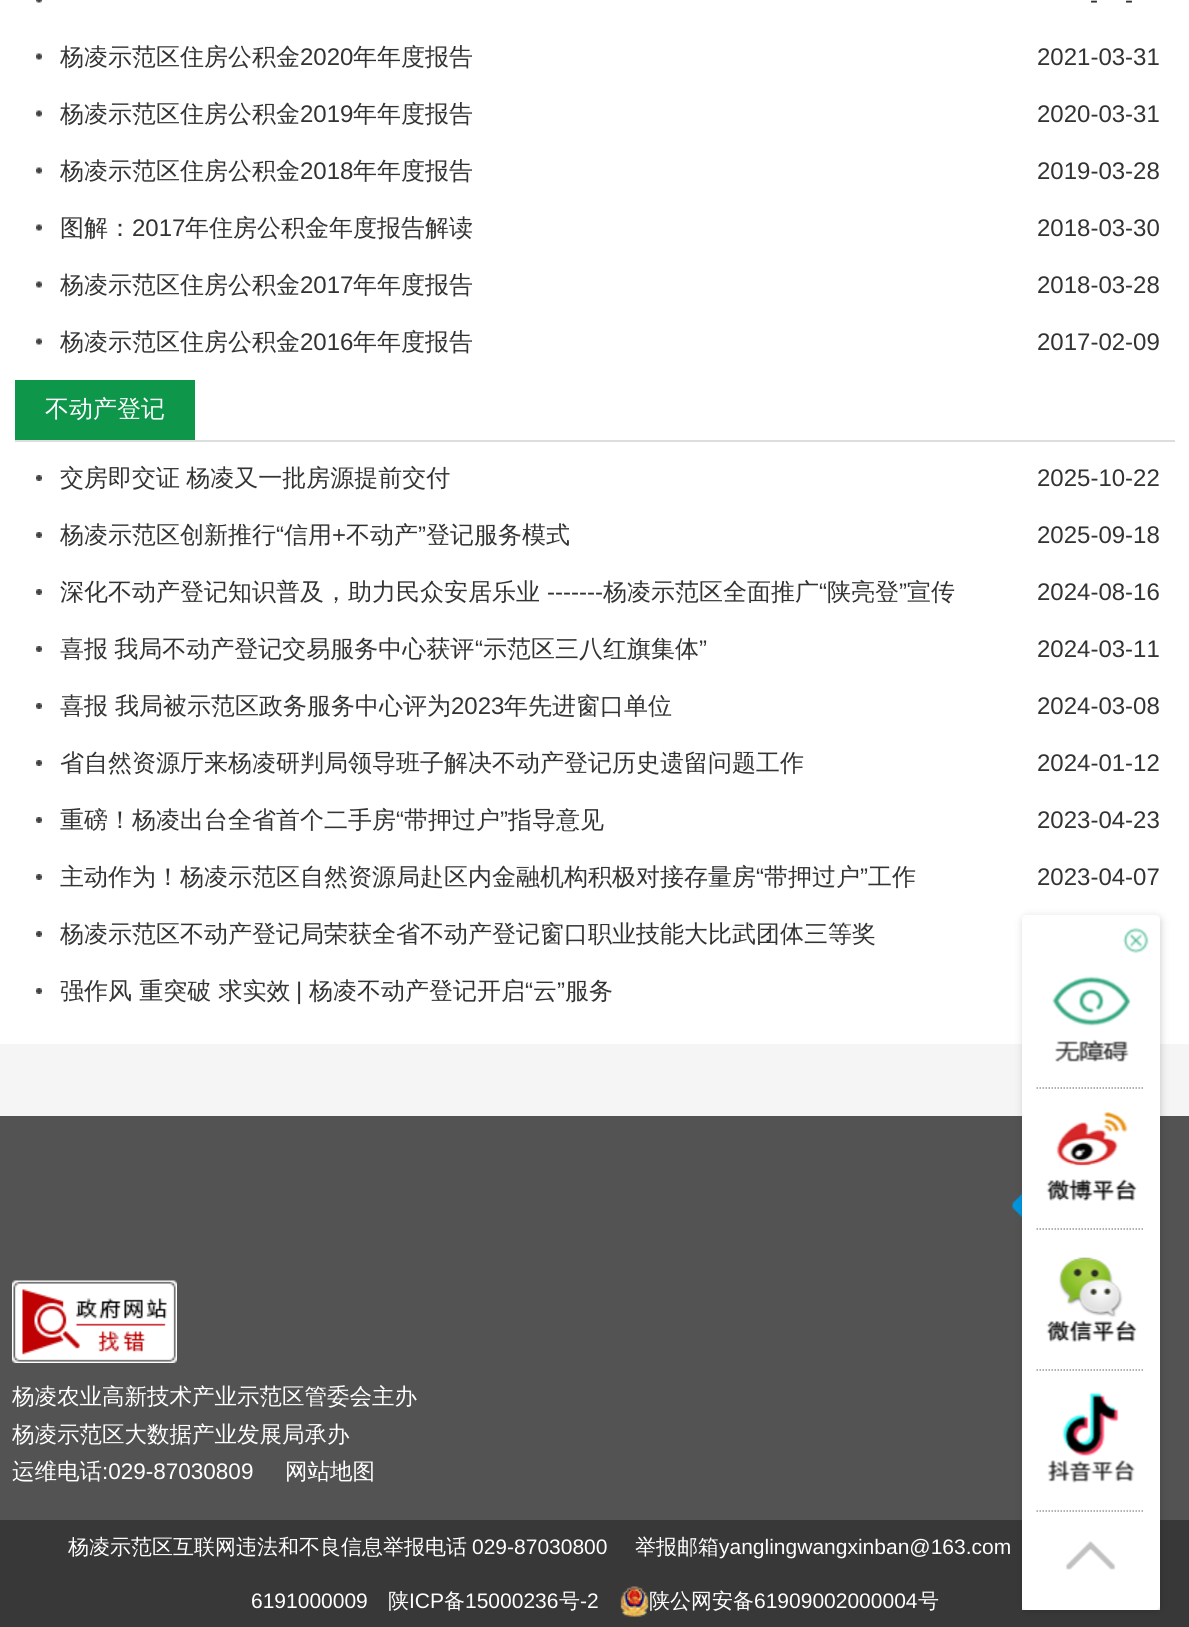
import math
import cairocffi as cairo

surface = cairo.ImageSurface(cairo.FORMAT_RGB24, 1189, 1627)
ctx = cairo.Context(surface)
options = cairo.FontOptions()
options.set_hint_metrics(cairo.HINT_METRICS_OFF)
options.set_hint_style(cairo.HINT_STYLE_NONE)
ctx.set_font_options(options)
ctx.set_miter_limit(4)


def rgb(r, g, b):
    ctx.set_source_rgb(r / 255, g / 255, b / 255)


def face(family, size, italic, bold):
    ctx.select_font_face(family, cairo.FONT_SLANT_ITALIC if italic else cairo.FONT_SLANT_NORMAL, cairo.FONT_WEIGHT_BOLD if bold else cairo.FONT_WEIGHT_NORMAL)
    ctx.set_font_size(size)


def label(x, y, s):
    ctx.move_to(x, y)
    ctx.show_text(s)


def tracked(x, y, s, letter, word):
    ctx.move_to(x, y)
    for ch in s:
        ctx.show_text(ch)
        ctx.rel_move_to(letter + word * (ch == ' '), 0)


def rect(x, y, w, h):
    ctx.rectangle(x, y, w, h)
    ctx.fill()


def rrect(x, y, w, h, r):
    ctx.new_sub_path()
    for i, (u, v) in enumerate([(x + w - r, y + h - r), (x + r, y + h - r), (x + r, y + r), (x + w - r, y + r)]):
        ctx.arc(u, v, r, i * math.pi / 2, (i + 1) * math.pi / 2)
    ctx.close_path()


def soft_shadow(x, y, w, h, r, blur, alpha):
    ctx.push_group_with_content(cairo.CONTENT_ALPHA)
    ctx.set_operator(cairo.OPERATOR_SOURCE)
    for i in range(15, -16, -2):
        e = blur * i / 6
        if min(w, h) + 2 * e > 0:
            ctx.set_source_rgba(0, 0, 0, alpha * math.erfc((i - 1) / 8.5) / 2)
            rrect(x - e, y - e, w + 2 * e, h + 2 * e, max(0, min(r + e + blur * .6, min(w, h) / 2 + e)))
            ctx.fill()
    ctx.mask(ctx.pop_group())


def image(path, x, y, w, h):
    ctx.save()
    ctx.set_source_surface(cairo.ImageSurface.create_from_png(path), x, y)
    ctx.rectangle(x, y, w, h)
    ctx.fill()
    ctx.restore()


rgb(245, 245, 245)
ctx.paint()
rgb(255, 255, 255)
rect(0, 0, 1189, 1044)
image('image0.png', 36, 0, 6, 3)
face('Liberation Sans', 24, 0, 0)
rgb(51, 51, 51)
label(1090, 8, '-')
label(1125, 8, '-')
image('image1.png', 36, 53, 6, 7)
face('WenQuanYi Zen Hei Medium', 24, 0, 0)
label(60, 65, '杨凌示范区住房公积金')
face('Liberation Sans', 24, 0, 0)
label(300, 65, '2020')
face('WenQuanYi Zen Hei Medium', 24, 0, 0)
label(353, 65, '年年度报告')
face('Liberation Sans', 24, 0, 0)
label(1037, 65, '2021-03-31')
image('image1.png', 36, 110, 6, 7)
face('WenQuanYi Zen Hei Medium', 24, 0, 0)
label(60, 122, '杨凌示范区住房公积金')
face('Liberation Sans', 24, 0, 0)
label(300, 122, '2019')
face('WenQuanYi Zen Hei Medium', 24, 0, 0)
label(353, 122, '年年度报告')
face('Liberation Sans', 24, 0, 0)
label(1037, 122, '2020-03-31')
image('image1.png', 36, 167, 6, 7)
face('WenQuanYi Zen Hei Medium', 24, 0, 0)
label(60, 179, '杨凌示范区住房公积金')
face('Liberation Sans', 24, 0, 0)
label(300, 179, '2018')
face('WenQuanYi Zen Hei Medium', 24, 0, 0)
label(353, 179, '年年度报告')
face('Liberation Sans', 24, 0, 0)
label(1037, 179, '2019-03-28')
image('image1.png', 36, 224, 6, 7)
face('WenQuanYi Zen Hei Medium', 24, 0, 0)
label(60, 236, '图解：')
face('Liberation Sans', 24, 0, 0)
label(132, 236, '2017')
face('WenQuanYi Zen Hei Medium', 24, 0, 0)
label(185, 236, '年住房公积金年度报告解读')
face('Liberation Sans', 24, 0, 0)
label(1037, 236, '2018-03-30')
image('image1.png', 36, 281, 6, 7)
face('WenQuanYi Zen Hei Medium', 24, 0, 0)
label(60, 293, '杨凌示范区住房公积金')
face('Liberation Sans', 24, 0, 0)
label(300, 293, '2017')
face('WenQuanYi Zen Hei Medium', 24, 0, 0)
label(353, 293, '年年度报告')
face('Liberation Sans', 24, 0, 0)
label(1037, 293, '2018-03-28')
image('image1.png', 36, 338, 6, 7)
face('WenQuanYi Zen Hei Medium', 24, 0, 0)
label(60, 350, '杨凌示范区住房公积金')
face('Liberation Sans', 24, 0, 0)
label(300, 350, '2016')
face('WenQuanYi Zen Hei Medium', 24, 0, 0)
label(353, 350, '年年度报告')
face('Liberation Sans', 24, 0, 0)
label(1037, 350, '2017-02-09')
rgb(221, 221, 221)
rect(15, 440, 1160, 2)
rgb(14, 150, 75)
rect(15, 380, 180, 60)
face('WenQuanYi Zen Hei Medium', 24, 0, 0)
rgb(255, 255, 255)
label(45, 417, '不动产登记')
image('image2.png', 36, 475, 6, 6)
rgb(51, 51, 51)
tracked(60, 486, '交房即交证 杨凌又一批房源提前交付', 0, -1)
face('Liberation Sans', 24, 0, 0)
label(1037, 486, '2025-10-22')
image('image2.png', 36, 532, 6, 6)
face('WenQuanYi Zen Hei Medium', 24, 0, 0)
label(60, 543, '杨凌示范区创新推行')
face('Liberation Sans', 24, 0, 0)
label(276, 543, '“')
face('WenQuanYi Zen Hei Medium', 24, 0, 0)
label(284, 543, '信用')
face('Liberation Sans', 24, 0, 0)
label(332, 543, '+')
face('WenQuanYi Zen Hei Medium', 24, 0, 0)
label(346, 543, '不动产')
face('Liberation Sans', 24, 0, 0)
label(418, 543, '”')
face('WenQuanYi Zen Hei Medium', 24, 0, 0)
label(426, 543, '登记服务模式')
face('Liberation Sans', 24, 0, 0)
label(1037, 543, '2025-09-18')
image('image2.png', 36, 589, 6, 6)
face('WenQuanYi Zen Hei Medium', 24, 0, 0)
label(60, 600, '深化不动产登记知识普及，助力民众安居乐业')
face('Liberation Sans', 24, 0, 0)
label(547, 600, '-------')
face('WenQuanYi Zen Hei Medium', 24, 0, 0)
label(603, 600, '杨凌示范区全面推广')
face('Liberation Sans', 24, 0, 0)
label(819, 600, '“')
face('WenQuanYi Zen Hei Medium', 24, 0, 0)
label(827, 600, '陕亮登')
face('Liberation Sans', 24, 0, 0)
label(899, 600, '”')
face('WenQuanYi Zen Hei Medium', 24, 0, 0)
label(907, 600, '宣传')
face('Liberation Sans', 24, 0, 0)
label(1037, 600, '2024-08-16')
image('image2.png', 36, 646, 6, 6)
face('WenQuanYi Zen Hei Medium', 24, 0, 0)
tracked(60, 657, '喜报 我局不动产登记交易服务中心获评', 0, -1)
face('Liberation Sans', 24, 0, 0)
label(475, 657, '“')
face('WenQuanYi Zen Hei Medium', 24, 0, 0)
label(483, 657, '示范区三八红旗集体')
face('Liberation Sans', 24, 0, 0)
label(699, 657, '”')
label(1037, 657, '2024-03-11')
image('image2.png', 36, 703, 6, 6)
face('WenQuanYi Zen Hei Medium', 24, 0, 0)
label(60, 714, '喜报')
label(115, 714, '我局被示范区政务服务中心评为')
face('Liberation Sans', 24, 0, 0)
label(451, 714, '2023')
face('WenQuanYi Zen Hei Medium', 24, 0, 0)
label(504, 714, '年先进窗口单位')
face('Liberation Sans', 24, 0, 0)
label(1037, 714, '2024-03-08')
image('image2.png', 36, 760, 6, 6)
face('WenQuanYi Zen Hei Medium', 24, 0, 0)
label(60, 771, '省自然资源厅来杨凌研判局领导班子解决不动产登记历史遗留问题工作')
face('Liberation Sans', 24, 0, 0)
label(1037, 771, '2024-01-12')
image('image2.png', 36, 817, 6, 6)
face('WenQuanYi Zen Hei Medium', 24, 0, 0)
label(60, 828, '重磅！杨凌出台全省首个二手房')
face('Liberation Sans', 24, 0, 0)
label(396, 828, '“')
face('WenQuanYi Zen Hei Medium', 24, 0, 0)
label(404, 828, '带押过户')
face('Liberation Sans', 24, 0, 0)
label(500, 828, '”')
face('WenQuanYi Zen Hei Medium', 24, 0, 0)
label(508, 828, '指导意见')
face('Liberation Sans', 24, 0, 0)
label(1037, 828, '2023-04-23')
image('image2.png', 36, 874, 6, 6)
face('WenQuanYi Zen Hei Medium', 24, 0, 0)
label(60, 885, '主动作为！杨凌示范区自然资源局赴区内金融机构积极对接存量房')
face('Liberation Sans', 24, 0, 0)
label(756, 885, '“')
face('WenQuanYi Zen Hei Medium', 24, 0, 0)
label(764, 885, '带押过户')
face('Liberation Sans', 24, 0, 0)
label(860, 885, '”')
face('WenQuanYi Zen Hei Medium', 24, 0, 0)
label(868, 885, '工作')
face('Liberation Sans', 24, 0, 0)
label(1037, 885, '2023-04-07')
image('image2.png', 36, 931, 6, 6)
face('WenQuanYi Zen Hei Medium', 24, 0, 0)
label(60, 942, '杨凌示范区不动产登记局荣获全省不动产登记窗口职业技能大比武团体三等奖')
image('image2.png', 36, 988, 6, 6)
label(60, 999, '强作风 重突破 求实效')
face('Liberation Sans', 24, 0, 0)
label(296, 999, '|')
face('WenQuanYi Zen Hei Medium', 24, 0, 0)
label(309, 999, '杨凌不动产登记开启')
face('Liberation Sans', 24, 0, 0)
label(525, 999, '“')
face('WenQuanYi Zen Hei Medium', 24, 0, 0)
label(533, 999, '云')
face('Liberation Sans', 24, 0, 0)
label(557, 999, '”')
face('WenQuanYi Zen Hei Medium', 24, 0, 0)
label(565, 999, '服务')
rgb(83, 83, 83)
rect(0, 1116, 1189, 404)
image('image3.png', 1012, 1193, 10, 25)
image('image4.png', 12, 1280, 165, 83)
face('WenQuanYi Zen Hei Medium', 22.5, 0, 0)
rgb(255, 255, 255)
label(12, 1404, '杨凌农业高新技术产业示范区管委会主办')
label(12, 1442, '杨凌示范区大数据产业发展局承办')
label(12, 1479, '运维电话')
face('Liberation Sans', 22.5, 0, 0)
label(102, 1479, ':029-87030809')
face('WenQuanYi Zen Hei Medium', 22.5, 0, 0)
label(285, 1479, '网站地图')
rgb(56, 56, 56)
rect(0, 1520, 1189, 107)
rgb(255, 255, 255)
rect(1022, 1044, 138, 566)
ctx.save()
ctx.set_fill_rule(cairo.FILL_RULE_EVEN_ODD)
ctx.new_path()
ctx.move_to(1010, 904)
ctx.line_to(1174, 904)
ctx.line_to(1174, 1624)
ctx.line_to(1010, 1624)
ctx.close_path()
ctx.move_to(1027, 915)
ctx.line_to(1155, 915)
ctx.curve_to(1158, 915, 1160, 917, 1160, 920)
ctx.line_to(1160, 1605)
ctx.curve_to(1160, 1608, 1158, 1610, 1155, 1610)
ctx.line_to(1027, 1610)
ctx.curve_to(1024, 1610, 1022, 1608, 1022, 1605)
ctx.line_to(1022, 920)
ctx.curve_to(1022, 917, 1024, 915, 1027, 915)
ctx.close_path()
ctx.clip()
rgb(20, 20, 20)
soft_shadow(1023, 917, 138, 694, 5, 4, 0.2)
ctx.restore()
image('image5.png', 1123, 927, 26, 27)
ctx.new_path()
ctx.move_to(1036.5, 1088)
ctx.line_to(1144.5, 1088)
rgb(153, 153, 153)
ctx.set_line_width(1.5)
ctx.set_dash([1.5, 1.5])
ctx.stroke()
image('image6.png', 1052, 976, 79, 86)
ctx.new_path()
ctx.move_to(1036.5, 1229)
ctx.line_to(1144.5, 1229)
ctx.stroke()
image('image7.png', 1046, 1112, 91, 89)
ctx.new_path()
ctx.move_to(1036.5, 1370)
ctx.line_to(1144.5, 1370)
ctx.stroke()
image('image8.png', 1046, 1257, 91, 85)
ctx.new_path()
ctx.move_to(1036.5, 1511)
ctx.line_to(1144.5, 1511)
ctx.stroke()
image('image9.png', 1047, 1392, 88, 91)
image('image10.png', 1065, 1541, 51, 29)
face('WenQuanYi Zen Hei Medium', 21, 0, 0)
rgb(255, 255, 255)
label(68, 1554, '杨凌示范区互联网违法和不良信息举报电话')
face('Liberation Sans', 21, 0, 0)
label(472, 1554, '029-87030800')
face('WenQuanYi Zen Hei Medium', 21, 0, 0)
label(635, 1554, '举报邮箱')
face('Liberation Sans', 21, 0, 0)
label(719, 1554, 'yanglingwangxinban@163.com')
label(251, 1608, '6191000009')
face('WenQuanYi Zen Hei Medium', 21, 0, 0)
label(388, 1608, '陕')
face('Liberation Sans', 21, 0, 0)
label(409, 1608, 'ICP')
face('WenQuanYi Zen Hei Medium', 21, 0, 0)
label(444, 1608, '备')
face('Liberation Sans', 21, 0, 0)
label(465, 1608, '15000236')
face('WenQuanYi Zen Hei Medium', 21, 0, 0)
label(559, 1608, '号')
face('Liberation Sans', 21, 0, 0)
label(580, 1608, '-2')
image('image11.png', 620, 1586, 29, 31)
face('WenQuanYi Zen Hei Medium', 21, 0, 0)
label(649, 1608, '陕公网安备')
face('Liberation Sans', 21, 0, 0)
label(754, 1608, '61909002000004')
face('WenQuanYi Zen Hei Medium', 21, 0, 0)
label(918, 1608, '号')
surface.write_to_png('render.png')
